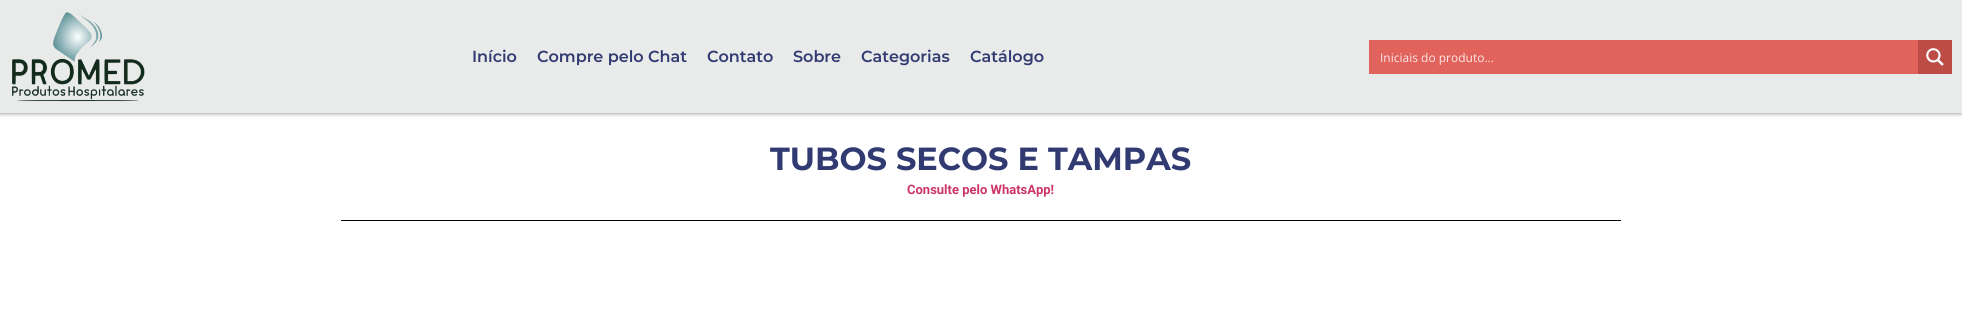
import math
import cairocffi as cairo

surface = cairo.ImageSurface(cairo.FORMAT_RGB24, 1962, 329)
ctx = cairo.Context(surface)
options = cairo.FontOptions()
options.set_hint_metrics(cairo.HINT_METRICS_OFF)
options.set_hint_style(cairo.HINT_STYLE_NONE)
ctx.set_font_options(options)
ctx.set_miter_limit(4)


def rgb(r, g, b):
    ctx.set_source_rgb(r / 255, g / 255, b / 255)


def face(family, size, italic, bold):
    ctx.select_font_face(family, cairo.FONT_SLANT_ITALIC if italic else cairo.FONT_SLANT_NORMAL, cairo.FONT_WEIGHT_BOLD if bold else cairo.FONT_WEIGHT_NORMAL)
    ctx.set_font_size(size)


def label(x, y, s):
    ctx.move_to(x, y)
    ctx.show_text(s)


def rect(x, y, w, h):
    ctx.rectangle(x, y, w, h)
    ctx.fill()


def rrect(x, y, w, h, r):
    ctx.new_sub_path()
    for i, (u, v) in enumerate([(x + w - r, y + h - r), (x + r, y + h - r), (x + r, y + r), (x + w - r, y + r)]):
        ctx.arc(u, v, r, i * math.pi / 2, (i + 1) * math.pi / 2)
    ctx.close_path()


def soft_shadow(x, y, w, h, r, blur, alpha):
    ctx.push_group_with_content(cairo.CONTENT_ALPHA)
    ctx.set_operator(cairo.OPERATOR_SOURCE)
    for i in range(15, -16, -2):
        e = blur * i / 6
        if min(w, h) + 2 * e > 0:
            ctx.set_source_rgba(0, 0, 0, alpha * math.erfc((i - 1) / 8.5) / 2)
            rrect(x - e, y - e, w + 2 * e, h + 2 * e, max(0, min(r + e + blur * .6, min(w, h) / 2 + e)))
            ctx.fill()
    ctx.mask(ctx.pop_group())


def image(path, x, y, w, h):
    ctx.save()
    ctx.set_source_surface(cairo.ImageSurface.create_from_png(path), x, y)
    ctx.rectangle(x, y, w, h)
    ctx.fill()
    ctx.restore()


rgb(255, 255, 255)
ctx.paint()
rgb(0, 0, 0)
soft_shadow(0, 0, 1962, 113, 0, 2.5, 0.5)
rgb(233, 234, 234)
rect(0, 0, 1962, 113)
image('image0.png', 12, 12, 133, 90)
face('Montserrat SemiBold', 16, 0, 0)
rgb(49, 59, 114)
label(472, 62, 'Início')
label(537, 62, 'Compre pelo Chat')
label(707, 62, 'Contato')
label(793, 62, 'Sobre')
label(861, 62, 'Categorias')
label(970, 62, 'Catálogo')
rgb(225, 99, 92)
rect(1369, 40, 549, 34)
face('Open Sans', 12, 0, 0)
rgb(251, 232, 231)
label(1380, 62, 'Iniciais do produto...')
rgb(190, 76, 70)
rect(1918, 40, 34, 34)
image('image1.png', 1926, 48, 18, 18)
face('Montserrat', 32, 0, 1)
rgb(49, 59, 114)
label(770, 170, 'TUBOS SECOS E TAMPAS')
face('Roboto', 13, 0, 1)
rgb(204, 51, 102)
label(907, 194, 'Consulte pelo WhatsApp!')
rgb(0, 0, 0)
rect(341, 220, 1280, 1)
surface.write_to_png('render.png')
